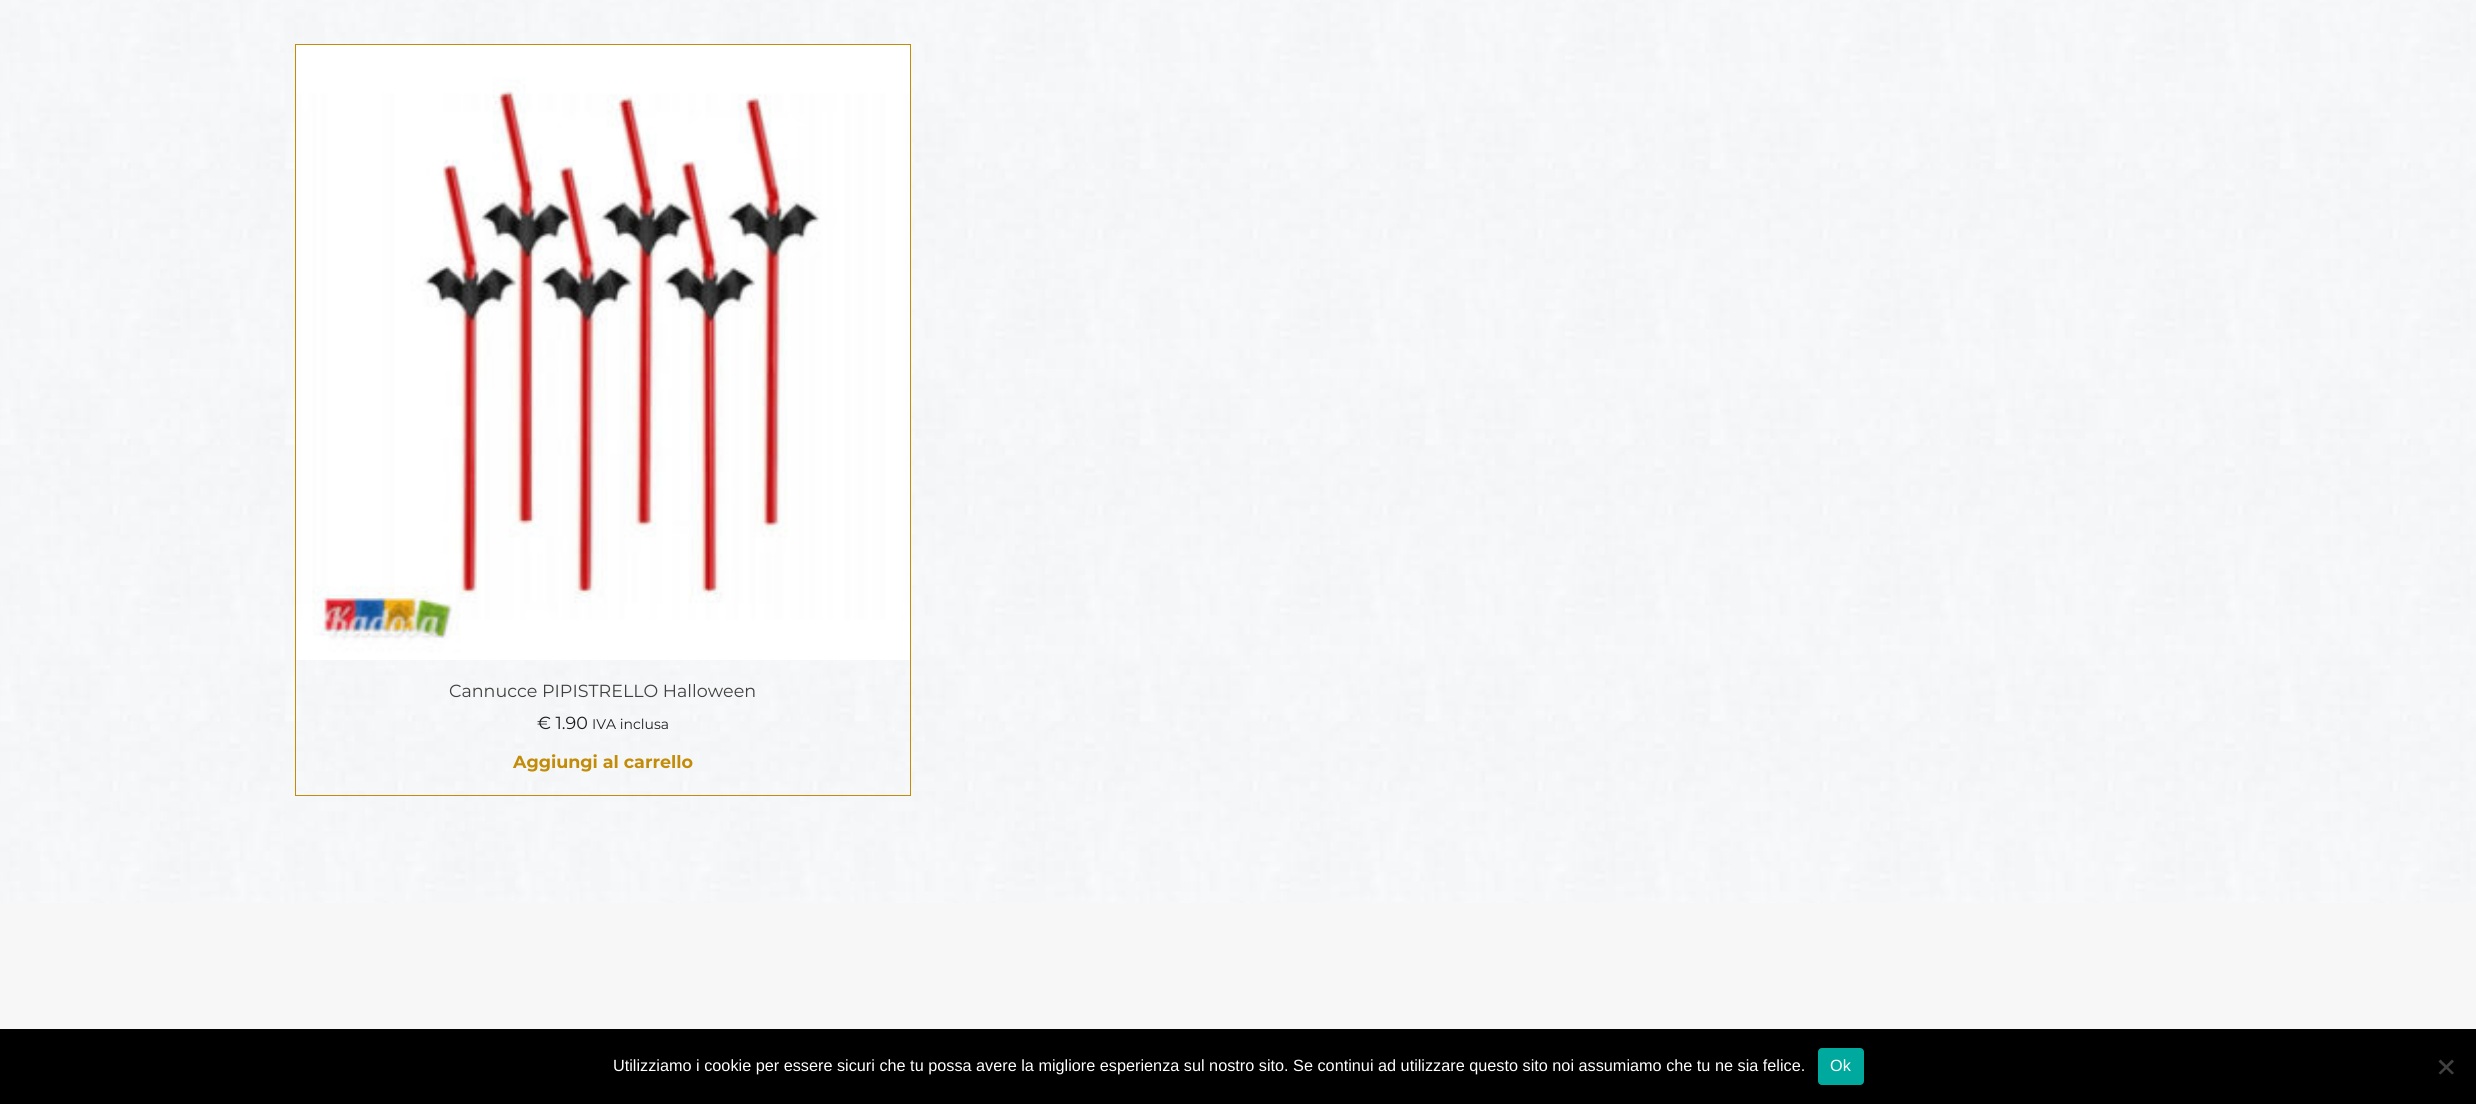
import math
import cairocffi as cairo

surface = cairo.ImageSurface(cairo.FORMAT_RGB24, 2476, 1104)
ctx = cairo.Context(surface)
options = cairo.FontOptions()
options.set_hint_metrics(cairo.HINT_METRICS_OFF)
options.set_hint_style(cairo.HINT_STYLE_NONE)
ctx.set_font_options(options)
ctx.set_miter_limit(4)


def rgb(r, g, b):
    ctx.set_source_rgb(r / 255, g / 255, b / 255)


def face(family, size, italic, bold):
    ctx.select_font_face(family, cairo.FONT_SLANT_ITALIC if italic else cairo.FONT_SLANT_NORMAL, cairo.FONT_WEIGHT_BOLD if bold else cairo.FONT_WEIGHT_NORMAL)
    ctx.set_font_size(size)


def label(x, y, s):
    ctx.move_to(x, y)
    ctx.show_text(s)


def rect(x, y, w, h):
    ctx.rectangle(x, y, w, h)
    ctx.fill()


def rrect(x, y, w, h, r):
    ctx.new_sub_path()
    for i, (u, v) in enumerate([(x + w - r, y + h - r), (x + r, y + h - r), (x + r, y + r), (x + w - r, y + r)]):
        ctx.arc(u, v, r, i * math.pi / 2, (i + 1) * math.pi / 2)
    ctx.close_path()


def image(path, x, y, w, h):
    ctx.save()
    ctx.set_source_surface(cairo.ImageSurface.create_from_png(path), x, y)
    ctx.rectangle(x, y, w, h)
    ctx.fill()
    ctx.restore()


rgb(255, 255, 255)
ctx.paint()
image('image0.png', 0, 0, 2476, 903)
ctx.rectangle(295.5, 44.5, 615, 751)
rgb(195, 140, 8)
ctx.set_line_width(1)
ctx.stroke()
image('image1.png', 296, 45, 614, 615)
face('Montserrat', 17.5, 0, 0)
rgb(64, 64, 64)
label(449, 697, 'Cannucce PIPISTRELLO Halloween')
rgb(31, 31, 31)
label(537, 729, '€ 1.90')
face('Montserrat', 14, 0, 0)
label(592, 729, 'IVA inclusa')
face('Montserrat', 17.5, 0, 1)
rgb(195, 140, 8)
label(513, 768, 'Aggiungi al carrello')
rgb(247, 247, 247)
rect(0, 903, 2476, 126)
rgb(0, 0, 0)
rect(0, 1029, 2476, 75)
face('Liberation Sans', 16.25, 0, 0)
rgb(255, 255, 255)
label(613, 1071, 'Utilizziamo i cookie per essere sicuri che tu possa avere la migliore esperienza sul nostro sito. Se continui ad utilizzare questo sito noi assumiamo che tu ne sia felice.')
rgb(0, 169, 157)
rrect(1818, 1048, 46, 37, 4)
ctx.fill()
rgb(255, 255, 255)
label(1830, 1071, 'Ok')
rgb(64, 64, 64)
ctx.new_path()
ctx.move_to(2452, 1059.5)
ctx.line_to(2454, 1061.5)
ctx.line_to(2440.5, 1074.5)
ctx.line_to(2438.5, 1073)
ctx.close_path()
ctx.fill()
ctx.new_path()
ctx.move_to(2438.5, 1061.5)
ctx.line_to(2440.5, 1059.5)
ctx.line_to(2454, 1073)
ctx.line_to(2452, 1074.5)
ctx.close_path()
ctx.fill()
surface.write_to_png('render.png')
